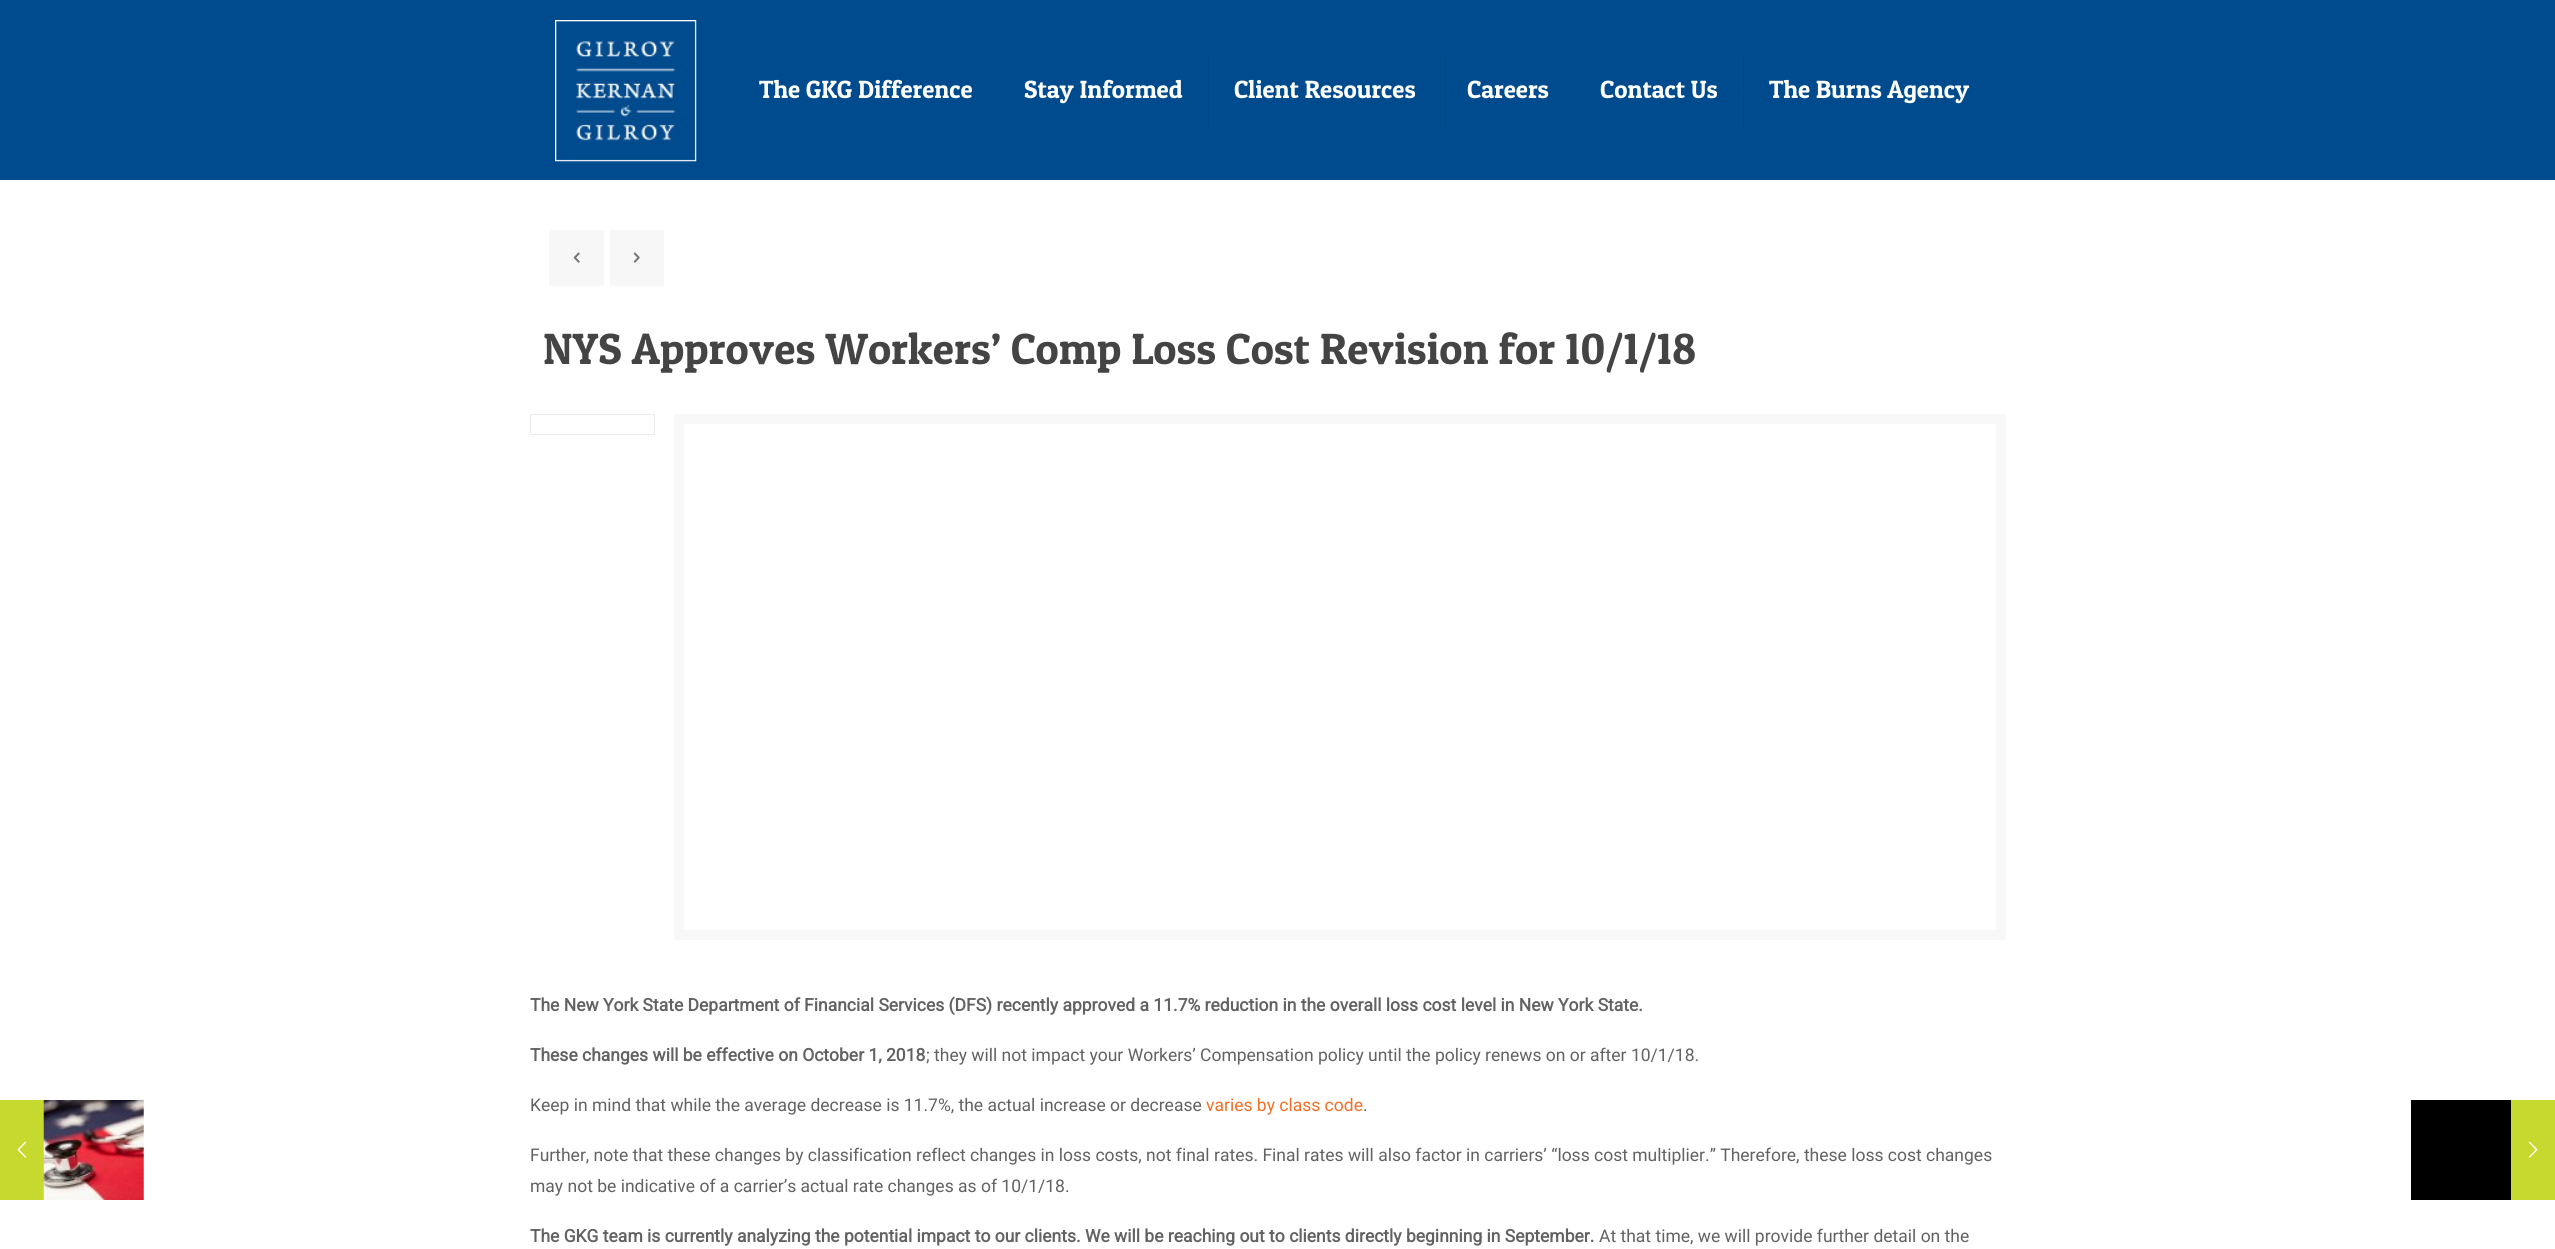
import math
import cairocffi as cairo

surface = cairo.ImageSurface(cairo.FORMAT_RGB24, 2555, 1249)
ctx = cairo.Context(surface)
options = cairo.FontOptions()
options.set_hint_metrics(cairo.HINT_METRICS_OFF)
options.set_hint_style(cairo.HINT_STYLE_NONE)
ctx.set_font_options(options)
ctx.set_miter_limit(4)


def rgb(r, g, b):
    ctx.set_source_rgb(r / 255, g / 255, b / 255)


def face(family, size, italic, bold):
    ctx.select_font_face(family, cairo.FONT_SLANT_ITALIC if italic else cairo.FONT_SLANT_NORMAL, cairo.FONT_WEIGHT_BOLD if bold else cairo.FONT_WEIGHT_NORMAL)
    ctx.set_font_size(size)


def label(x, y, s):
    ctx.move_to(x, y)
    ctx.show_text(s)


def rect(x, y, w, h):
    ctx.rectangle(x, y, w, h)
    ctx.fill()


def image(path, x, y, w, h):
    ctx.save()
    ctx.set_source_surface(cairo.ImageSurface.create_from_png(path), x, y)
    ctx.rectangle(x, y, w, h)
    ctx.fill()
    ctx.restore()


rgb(255, 255, 255)
ctx.paint()
rgb(197, 217, 46)
rect(0, 1100, 44, 100)
image('image0.png', 17, 1141, 10, 17)
image('image1.png', 43, 1100, 101, 100)
rgb(0, 75, 141)
rect(0, 0, 2555, 180)
image('image2.png', 555, 20, 142, 142)
rgb(0, 71, 134)
rect(998, 53, 1, 75)
face('Patua One', 25, 0, 0)
rgb(255, 255, 255)
label(759, 98, 'The GKG Difference')
rgb(0, 71, 134)
rect(1208, 53, 1, 75)
rgb(255, 255, 255)
label(1024, 98, 'Stay Informed')
rgb(0, 71, 134)
rect(1440, 53, 1, 75)
rgb(255, 255, 255)
label(1234, 98, 'Client Resources')
rgb(0, 71, 134)
rect(1574, 53, 1, 75)
rgb(255, 255, 255)
label(1467, 98, 'Careers')
rgb(0, 71, 134)
rect(1743, 53, 1, 75)
rgb(255, 255, 255)
label(1600, 98, 'Contact Us')
label(1769, 98, 'The Burns Agency')
rgb(247, 247, 247)
rect(549, 230, 55, 56)
image('image3.png', 573, 252, 7, 11)
rect(610, 230, 54, 56)
image('image4.png', 633, 252, 7, 11)
face('Patua One', 43.75, 0, 0)
rgb(68, 68, 68)
label(543, 364, 'NYS Approves Workers’ Comp Loss Cost Revision for 10/1/18')
ctx.rectangle(530.5, 414.5, 124, 20)
rgb(235, 235, 235)
ctx.set_line_width(1)
ctx.stroke()
ctx.rectangle(679, 419, 1322, 516)
rgb(248, 248, 248)
ctx.set_line_width(10)
ctx.stroke()
face('Roboto', 17.5, 0, 1)
rgb(98, 98, 98)
label(530, 1011, 'The New York State Department of Financial Services (DFS) recently approved a 11.7% reduction in the overall loss cost level in New York State.')
label(530, 1061, 'These changes will be effective on October 1, 2018')
face('Roboto', 17.5, 0, 0)
label(926, 1061, '; they will not impact your Workers’ Compensation policy until the policy renews on or after 10/1/18.')
label(530, 1111, 'Keep in mind that while the average decrease is 11.7%, the actual increase or decrease')
rgb(243, 111, 37)
label(1206, 1111, 'varies by class code')
rgb(98, 98, 98)
label(1363, 1111, '.')
label(530, 1161, 'Further, note that these changes by classification reflect changes in loss costs, not final rates. Final rates will also factor in carriers’ “loss cost multiplier.” Therefore, these loss cost changes')
label(530, 1192, 'may not be indicative of a carrier’s actual rate changes as of 10/1/18.')
face('Roboto', 17.5, 0, 1)
label(530, 1242, 'The GKG team is currently analyzing the potential impact to our clients. We will be reaching out to clients directly beginning in September.')
face('Roboto', 17.5, 0, 0)
label(1599, 1242, 'At that time, we will provide further detail on the')
rgb(0, 0, 0)
rect(2411, 1100, 100, 100)
rgb(197, 217, 46)
rect(2511, 1100, 44, 100)
image('image5.png', 2528, 1141, 10, 17)
surface.write_to_png('render.png')
